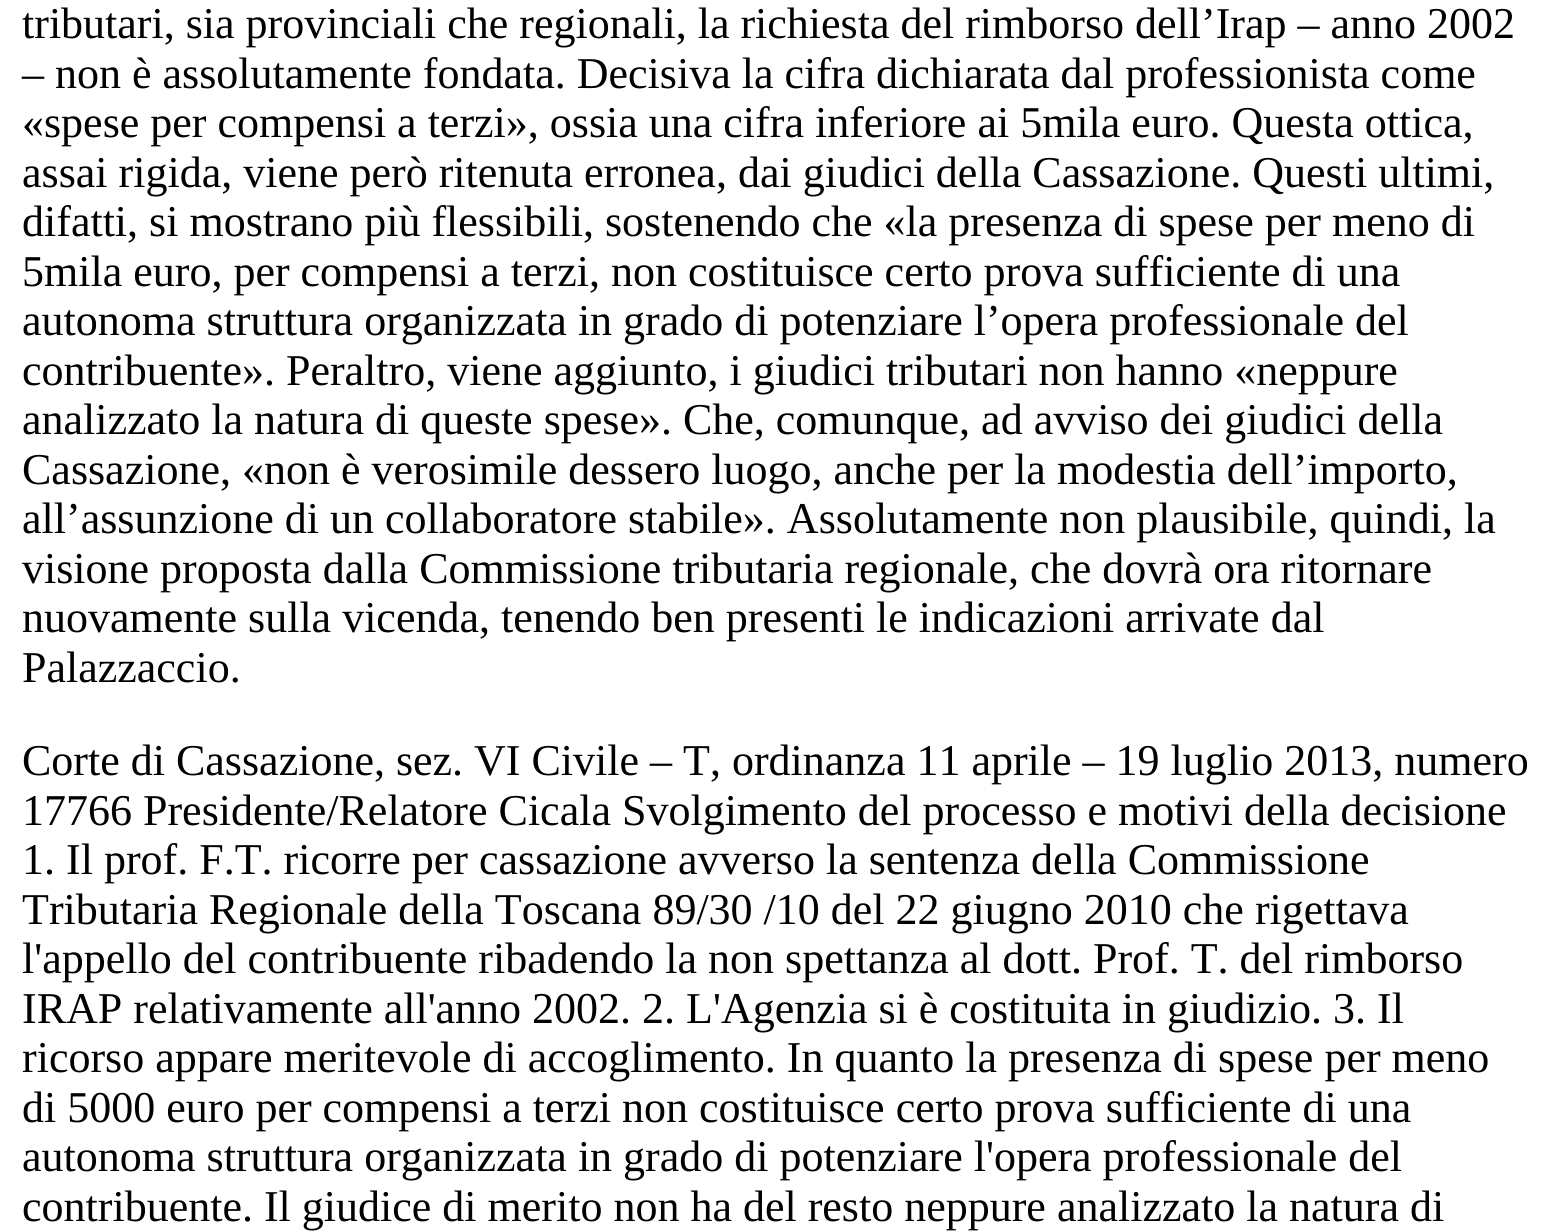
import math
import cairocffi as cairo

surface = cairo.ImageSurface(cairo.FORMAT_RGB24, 1550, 1232)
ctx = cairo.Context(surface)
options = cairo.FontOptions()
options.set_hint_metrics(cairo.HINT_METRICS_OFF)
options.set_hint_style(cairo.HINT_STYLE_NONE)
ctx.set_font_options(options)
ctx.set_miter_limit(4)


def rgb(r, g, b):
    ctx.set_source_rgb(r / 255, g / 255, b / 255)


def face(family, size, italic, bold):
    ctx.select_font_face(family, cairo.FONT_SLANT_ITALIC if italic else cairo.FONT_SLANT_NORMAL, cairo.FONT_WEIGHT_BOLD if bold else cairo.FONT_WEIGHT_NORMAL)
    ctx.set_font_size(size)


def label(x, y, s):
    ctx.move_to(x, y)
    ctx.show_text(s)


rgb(255, 255, 255)
ctx.paint()
face('Liberation Serif', 44, 0, 0)
rgb(0, 0, 0)
label(22, 38, 'tributari, sia provinciali che regionali, la richiesta del rimborso dell’Irap – anno 2002')
label(22, 88, '– non è assolutamente fondata. Decisiva la cifra dichiarata dal professionista come')
label(22, 137, '«spese per compensi a terzi», ossia una cifra inferiore ai 5mila euro. Questa ottica,')
label(22, 187, 'assai rigida, viene però ritenuta erronea, dai giudici della Cassazione. Questi ultimi,')
label(22, 236, 'difatti, si mostrano più flessibili, sostenendo che «la presenza di spese per meno di')
label(22, 286, '5mila euro, per compensi a terzi, non costituisce certo prova sufficiente di una')
label(22, 335, 'autonoma struttura organizzata in grado di potenziare l’opera professionale del')
label(22, 385, 'contribuente». Peraltro, viene aggiunto, i giudici tributari non hanno «neppure')
label(22, 434, 'analizzato la natura di queste spese». Che, comunque, ad avviso dei giudici della')
label(22, 484, 'Cassazione, «non è verosimile dessero luogo, anche per la modestia dell’importo,')
label(22, 533, 'all’assunzione di un collaboratore stabile». Assolutamente non plausibile, quindi, la')
label(22, 583, 'visione proposta dalla Commissione tributaria regionale, che dovrà ora ritornare')
label(22, 632, 'nuovamente sulla vicenda, tenendo ben presenti le indicazioni arrivate dal')
label(22, 682, 'Palazzaccio.')
label(22, 775, 'Corte di Cassazione, sez. VI Civile – T, ordinanza 11 aprile – 19 luglio 2013, numero')
label(22, 825, '17766 Presidente/Relatore Cicala Svolgimento del processo e motivi della decisione')
label(22, 874, '1. Il prof. F.T. ricorre per cassazione avverso la sentenza della Commissione')
label(22, 924, 'Tributaria Regionale della Toscana 89/30 /10 del 22 giugno 2010 che rigettava')
label(22, 973, 'l\'appello del contribuente ribadendo la non spettanza al dott. Prof. T. del rimborso')
label(22, 1023, 'IRAP relativamente all\'anno 2002. 2. L\'Agenzia si è costituita in giudizio. 3. Il')
label(22, 1072, 'ricorso appare meritevole di accoglimento. In quanto la presenza di spese per meno')
label(22, 1122, 'di 5000 euro per compensi a terzi non costituisce certo prova sufficiente di una')
label(22, 1171, 'autonoma struttura organizzata in grado di potenziare l\'opera professionale del')
label(22, 1221, 'contribuente. Il giudice di merito non ha del resto neppure analizzato la natura di')
surface.write_to_png('render.png')
